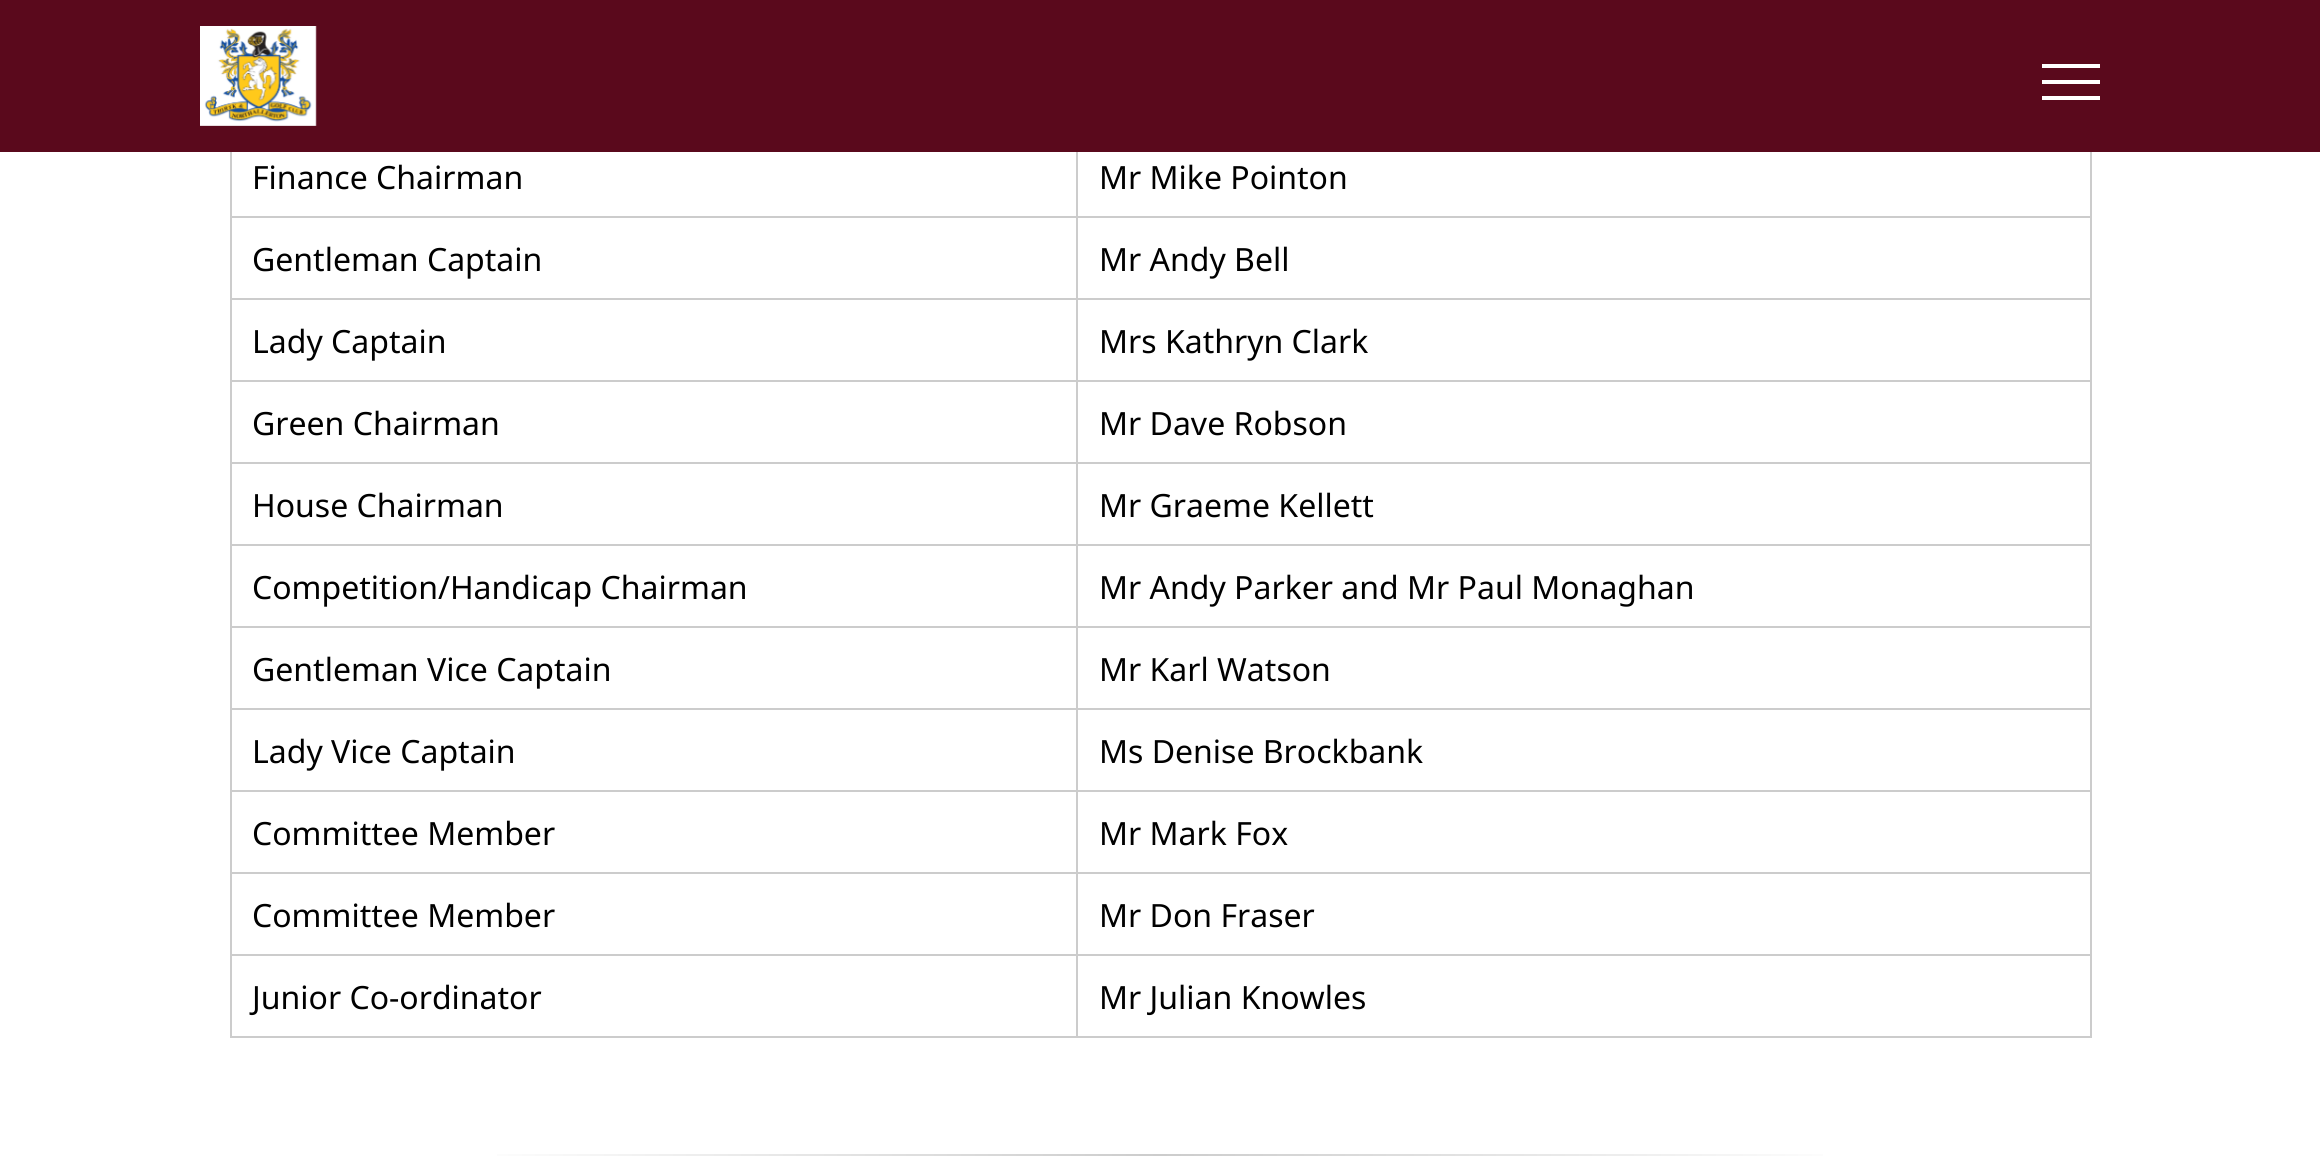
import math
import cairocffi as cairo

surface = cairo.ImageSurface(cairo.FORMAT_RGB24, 2320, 1157)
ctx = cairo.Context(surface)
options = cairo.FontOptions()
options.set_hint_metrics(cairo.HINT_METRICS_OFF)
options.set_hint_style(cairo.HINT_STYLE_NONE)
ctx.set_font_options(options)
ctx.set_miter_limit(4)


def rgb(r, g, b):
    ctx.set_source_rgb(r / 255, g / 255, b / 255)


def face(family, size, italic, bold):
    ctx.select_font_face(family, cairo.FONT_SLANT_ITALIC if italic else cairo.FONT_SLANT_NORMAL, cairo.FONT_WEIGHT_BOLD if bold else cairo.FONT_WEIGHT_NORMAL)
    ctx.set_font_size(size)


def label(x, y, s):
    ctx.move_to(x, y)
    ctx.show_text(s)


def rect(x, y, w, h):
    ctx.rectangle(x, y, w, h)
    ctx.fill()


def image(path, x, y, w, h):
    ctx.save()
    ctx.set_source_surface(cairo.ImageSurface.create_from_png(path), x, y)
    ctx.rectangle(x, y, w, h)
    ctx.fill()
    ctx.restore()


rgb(255, 255, 255)
ctx.paint()
rgb(90, 9, 28)
rect(0, 0, 2320, 152)
image('image0.png', 200, 26, 117, 100)
rgb(255, 255, 255)
rect(2042, 64, 58, 4)
rect(2042, 80, 58, 4)
rect(2042, 96, 58, 4)
face('Noto Sans', 32, 0, 0)
rgb(0, 0, 0)
label(252, 189, 'Finance Chairman')
rgb(204, 204, 204)
rect(1076, 216, 1016, 2)
rect(1076, 298, 1016, 2)
rect(1076, 380, 1016, 2)
rect(1076, 462, 1016, 2)
rect(1076, 544, 1016, 2)
rect(1076, 626, 1016, 2)
rect(1076, 708, 1016, 2)
rect(1076, 790, 1016, 2)
rect(1076, 872, 1016, 2)
rect(1076, 954, 1016, 2)
rect(2090, 954, 2, 84)
rect(1076, 1036, 1016, 2)
rect(1076, 954, 2, 84)
rect(230, 954, 848, 2)
rect(1076, 872, 2, 84)
rect(230, 872, 848, 2)
rect(1076, 790, 2, 84)
rect(230, 790, 848, 2)
rect(1076, 708, 2, 84)
rect(230, 708, 848, 2)
rect(1076, 626, 2, 84)
rect(230, 626, 848, 2)
rect(1076, 544, 2, 84)
rect(230, 544, 848, 2)
rect(1076, 462, 2, 84)
rect(230, 462, 848, 2)
rect(1076, 380, 2, 84)
rect(230, 380, 848, 2)
rect(1076, 298, 2, 84)
rect(230, 298, 848, 2)
rect(1076, 216, 2, 84)
rect(230, 216, 848, 2)
rect(1076, 152, 2, 66)
rgb(0, 0, 0)
label(1099, 189, 'Mr Mike Pointon')
rgb(204, 204, 204)
rect(230, 1036, 848, 2)
rect(230, 954, 2, 84)
rect(230, 872, 2, 84)
rect(230, 790, 2, 84)
rect(230, 708, 2, 84)
rect(230, 626, 2, 84)
rect(230, 544, 2, 84)
rect(230, 462, 2, 84)
rect(230, 380, 2, 84)
rect(230, 298, 2, 84)
rect(230, 152, 2, 148)
rgb(0, 0, 0)
label(252, 271, 'Gentleman Captain')
rgb(204, 204, 204)
rect(2090, 872, 2, 84)
rect(2090, 790, 2, 84)
rect(2090, 708, 2, 84)
rect(2090, 626, 2, 84)
rect(2090, 544, 2, 84)
rect(2090, 462, 2, 84)
rect(2090, 380, 2, 84)
rect(2090, 298, 2, 84)
rect(2090, 152, 2, 148)
rgb(0, 0, 0)
label(1099, 271, 'Mr Andy Bell')
label(252, 353, 'Lady Captain')
label(1099, 353, 'Mrs Kathryn Clark')
label(252, 435, 'Green Chairman')
label(1099, 435, 'Mr Dave Robson')
label(252, 517, 'House Chairman')
label(1099, 517, 'Mr Graeme Kellett')
label(252, 599, 'Competition/Handicap Chairman')
label(1099, 599, 'Mr Andy Parker and Mr Paul Monaghan')
label(252, 681, 'Gentleman Vice Captain')
label(1099, 681, 'Mr Karl Watson')
label(252, 763, 'Lady Vice Captain')
label(1099, 763, 'Ms Denise Brockbank')
label(252, 845, 'Committee Member')
label(1099, 845, 'Mr Mark Fox')
label(252, 927, 'Committee Member')
label(1099, 927, 'Mr Don Fraser')
label(252, 1009, 'Junior Co-ordinator')
label(1099, 1009, 'Mr Julian Knowles')
gradient = cairo.RadialGradient(1160, 1155, 0, 1160, 1155, 700)
gradient.add_color_stop_rgba(0, 0.8, 0.8, 0.8, 1)
gradient.add_color_stop_rgba(1, 1, 1, 1, 1)
ctx.set_source(gradient)
rect(497, 1154, 1326, 2)
surface.write_to_png('render.png')
